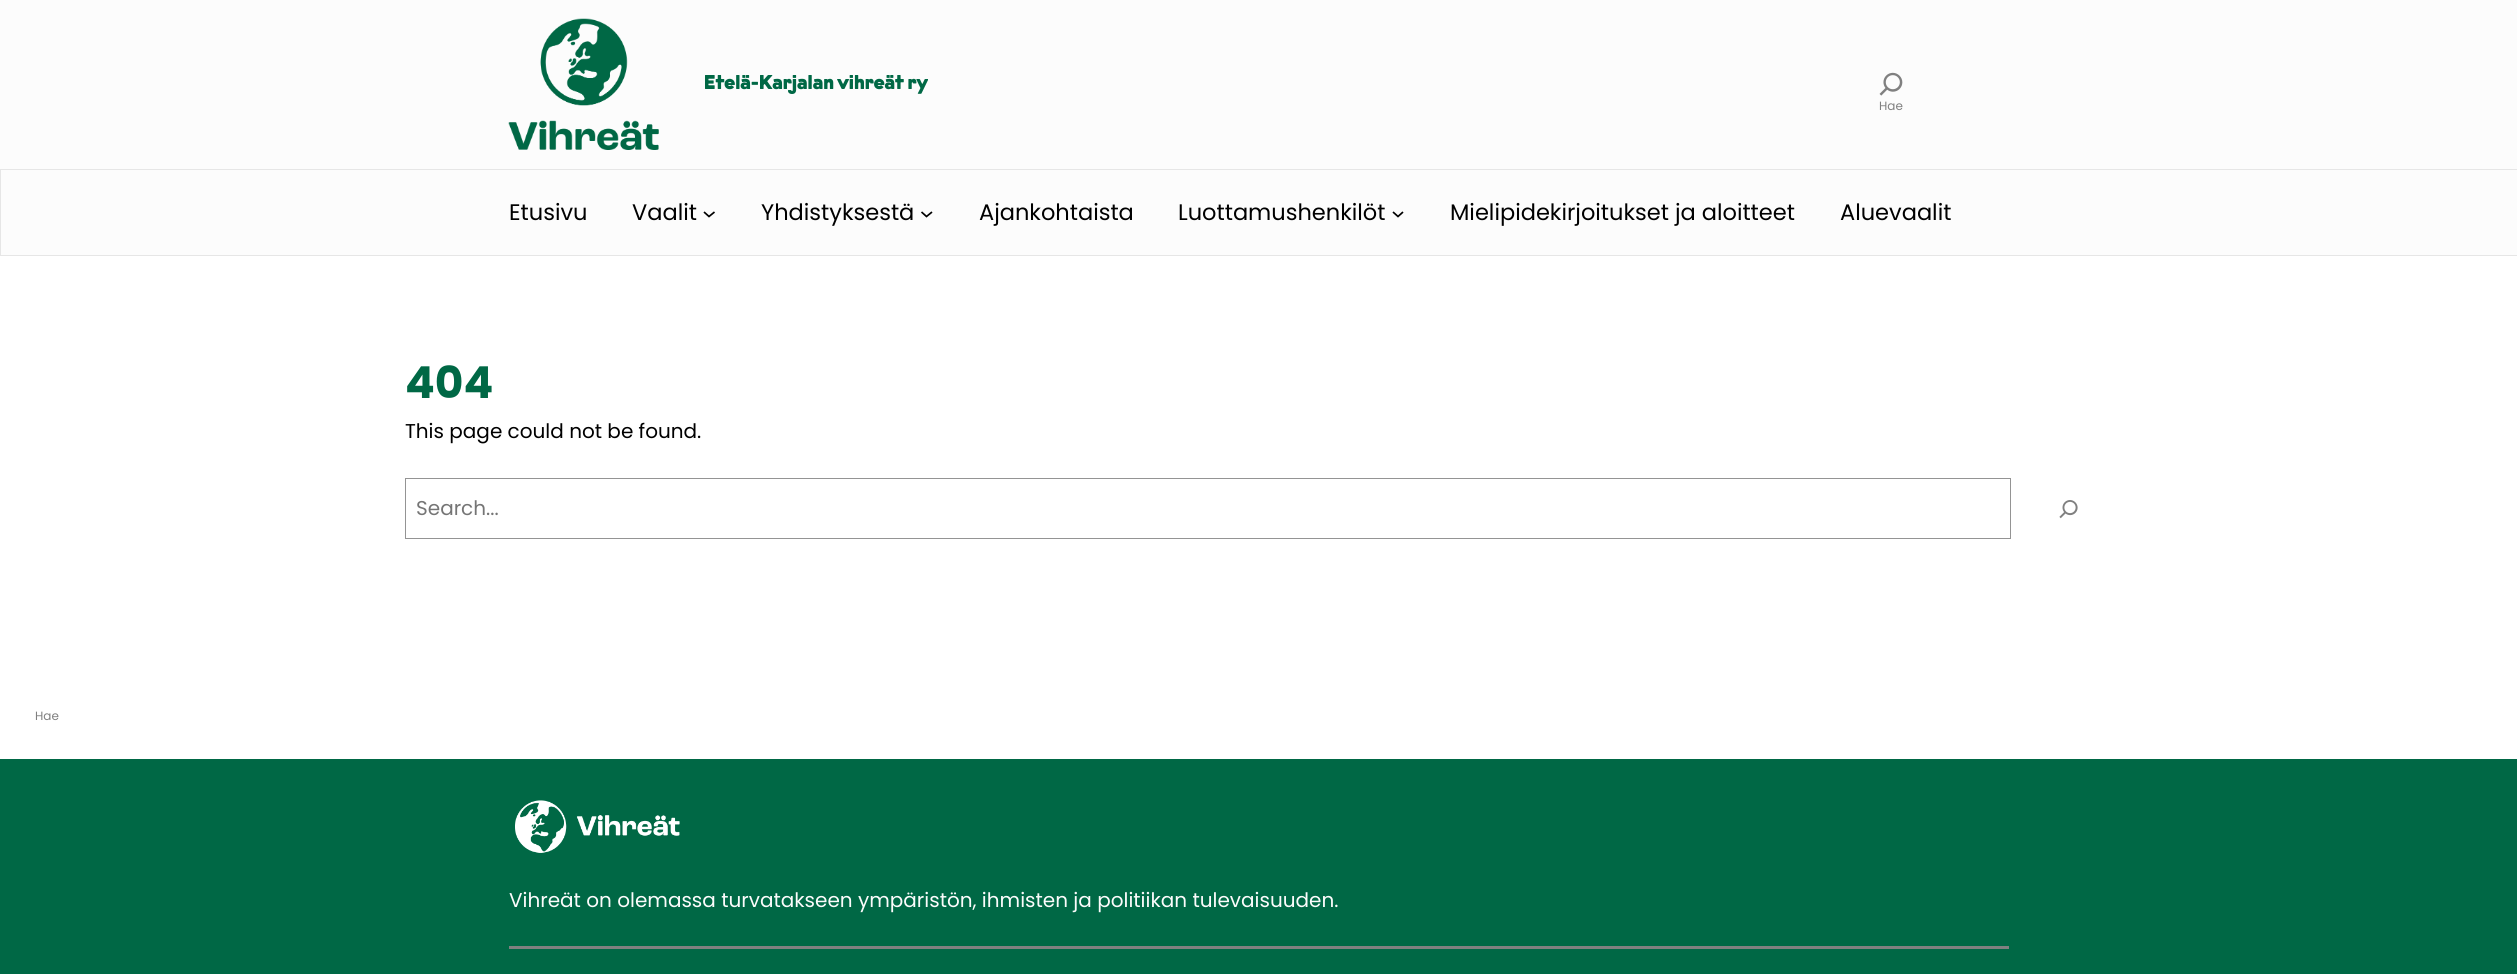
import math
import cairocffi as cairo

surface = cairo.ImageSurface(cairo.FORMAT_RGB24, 2517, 974)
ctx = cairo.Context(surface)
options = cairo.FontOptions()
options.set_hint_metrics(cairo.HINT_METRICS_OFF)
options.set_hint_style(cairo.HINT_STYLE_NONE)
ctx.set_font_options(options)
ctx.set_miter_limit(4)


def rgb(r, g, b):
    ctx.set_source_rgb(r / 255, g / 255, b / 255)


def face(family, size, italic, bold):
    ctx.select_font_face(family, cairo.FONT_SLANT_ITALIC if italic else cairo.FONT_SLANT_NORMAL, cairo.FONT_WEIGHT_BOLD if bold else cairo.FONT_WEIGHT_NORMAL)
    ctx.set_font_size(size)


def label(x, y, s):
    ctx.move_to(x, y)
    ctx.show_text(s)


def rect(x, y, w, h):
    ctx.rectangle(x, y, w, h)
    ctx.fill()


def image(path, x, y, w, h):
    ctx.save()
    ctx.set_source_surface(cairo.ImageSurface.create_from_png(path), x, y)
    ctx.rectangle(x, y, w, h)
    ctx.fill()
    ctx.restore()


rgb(255, 255, 255)
ctx.paint()
rgb(252, 252, 252)
rect(0, 0, 2517, 255)
image('image0.png', 508, 18, 151, 132)
face('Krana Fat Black', 20, 0, 0)
rgb(0, 104, 69)
label(704, 89, 'Etelä-Karjalan vihreät ry')
image('image1.png', 1879, 72, 24, 24)
face('Poppins', 12, 0, 0)
rgb(128, 128, 128)
label(1879, 110, 'Hae')
ctx.rectangle(0.5, 169.5, 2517, 86)
rgb(230, 230, 230)
ctx.set_line_width(1)
ctx.stroke()
face('Poppins', 22.5, 0, 0)
rgb(0, 0, 0)
label(509, 220, 'Etusivu')
label(632, 220, 'Vaalit')
ctx.new_path()
ctx.move_to(704, 212)
ctx.line_to(709, 216.5)
ctx.line_to(714.5, 212)
ctx.set_line_width(1.7)
ctx.stroke()
label(761, 220, 'Yhdistyksestä')
ctx.new_path()
ctx.move_to(921.5, 212)
ctx.line_to(926.5, 216.5)
ctx.line_to(932, 212)
ctx.stroke()
label(979, 220, 'Ajankohtaista')
label(1178, 220, 'Luottamushenkilöt')
ctx.new_path()
ctx.move_to(1393, 212)
ctx.line_to(1398, 216.5)
ctx.line_to(1403, 212)
ctx.stroke()
label(1450, 220, 'Mielipidekirjoitukset ja aloitteet')
label(1840, 220, 'Aluevaalit')
face('Poppins', 44, 0, 1)
rgb(0, 104, 69)
label(405, 398, '404')
face('Poppins', 20, 0, 0)
rgb(0, 0, 0)
label(405, 438, 'This page could not be found.')
ctx.rectangle(405.5, 478.5, 1605, 60)
rgb(148, 148, 148)
ctx.set_line_width(1)
ctx.stroke()
rgb(117, 117, 117)
label(416, 515, 'Search...')
image('image2.png', 2059, 500, 19, 19)
face('Poppins', 12, 0, 0)
rgb(128, 128, 128)
label(35, 720, 'Hae')
rgb(0, 104, 69)
rect(0, 759, 2517, 215)
image('image3.png', 515, 800, 165, 53)
face('Poppins', 20, 0, 0)
rgb(252, 252, 252)
label(509, 907, 'Vihreät on olemassa turvatakseen ympäristön, ihmisten ja politiikan tulevaisuuden.')
rgb(128, 128, 128)
rect(509, 946, 1500, 3)
surface.write_to_png('render.png')
